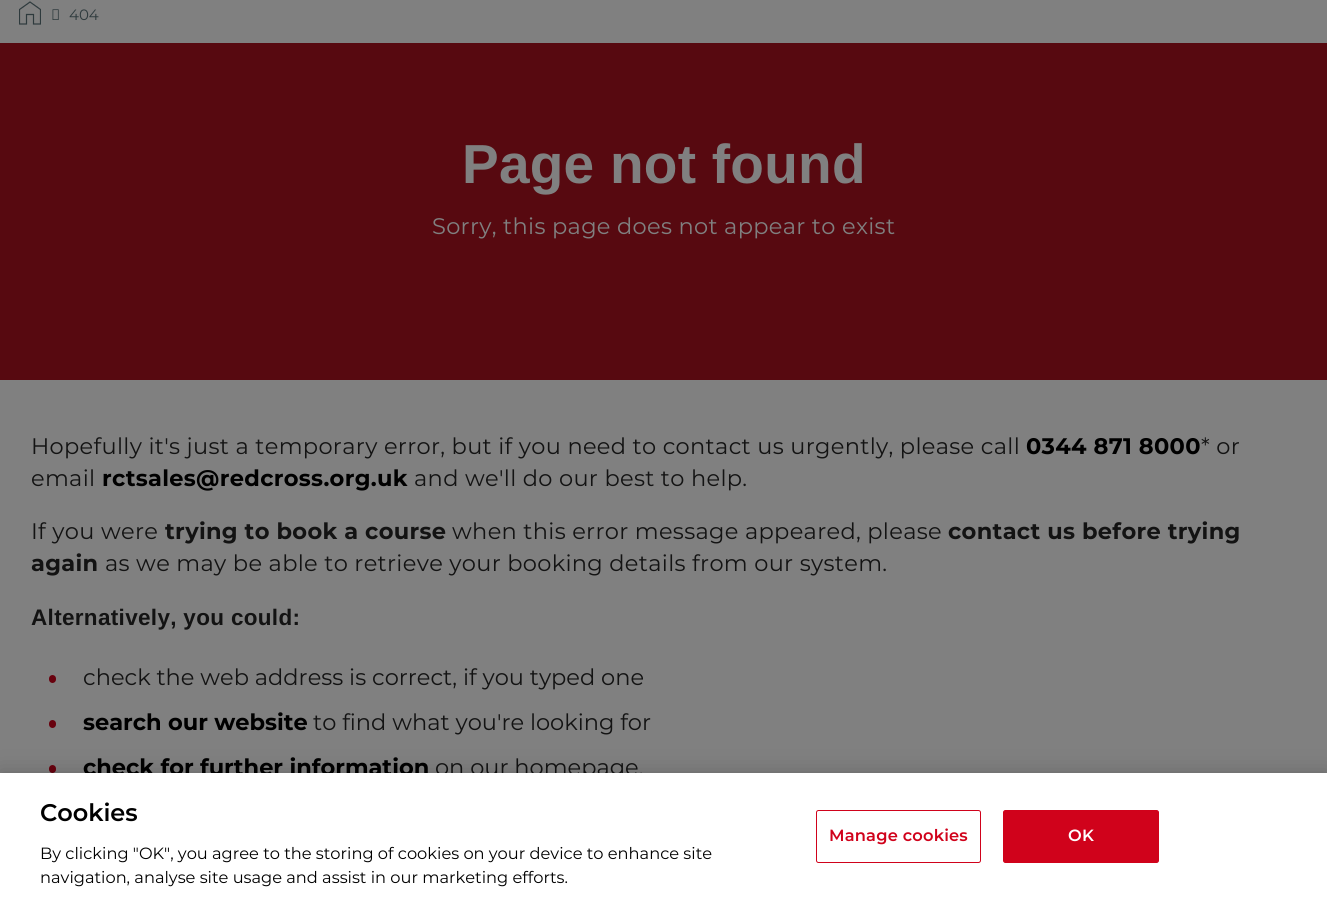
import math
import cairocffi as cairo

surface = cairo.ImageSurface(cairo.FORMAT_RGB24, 1327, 902)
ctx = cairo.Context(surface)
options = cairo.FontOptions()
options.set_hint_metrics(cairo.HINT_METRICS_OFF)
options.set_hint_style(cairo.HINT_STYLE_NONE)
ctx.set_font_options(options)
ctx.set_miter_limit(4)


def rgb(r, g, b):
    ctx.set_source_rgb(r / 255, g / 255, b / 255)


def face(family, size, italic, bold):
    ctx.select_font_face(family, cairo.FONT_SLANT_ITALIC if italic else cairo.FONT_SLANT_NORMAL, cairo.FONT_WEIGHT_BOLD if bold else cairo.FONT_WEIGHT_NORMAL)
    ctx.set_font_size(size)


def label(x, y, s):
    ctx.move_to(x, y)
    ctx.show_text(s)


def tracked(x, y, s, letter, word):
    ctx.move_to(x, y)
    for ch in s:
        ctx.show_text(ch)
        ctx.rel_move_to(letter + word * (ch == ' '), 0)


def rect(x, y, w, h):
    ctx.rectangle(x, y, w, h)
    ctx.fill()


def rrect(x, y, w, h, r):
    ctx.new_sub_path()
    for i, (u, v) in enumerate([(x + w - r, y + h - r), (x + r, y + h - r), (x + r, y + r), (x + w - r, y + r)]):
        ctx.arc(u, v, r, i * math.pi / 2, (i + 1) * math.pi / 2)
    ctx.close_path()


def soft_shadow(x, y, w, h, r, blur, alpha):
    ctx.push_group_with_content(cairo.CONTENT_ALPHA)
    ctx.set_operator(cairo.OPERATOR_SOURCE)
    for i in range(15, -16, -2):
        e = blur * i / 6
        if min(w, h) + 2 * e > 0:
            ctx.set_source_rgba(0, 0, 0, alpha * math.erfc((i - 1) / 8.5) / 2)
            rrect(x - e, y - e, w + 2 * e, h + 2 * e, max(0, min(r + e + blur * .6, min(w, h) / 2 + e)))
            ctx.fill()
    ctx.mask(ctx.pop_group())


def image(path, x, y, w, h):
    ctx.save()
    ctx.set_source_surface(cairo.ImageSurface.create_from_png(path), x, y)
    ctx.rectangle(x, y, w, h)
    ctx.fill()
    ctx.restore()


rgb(128, 128, 128)
ctx.paint()
ctx.save()
ctx.rectangle(19, 1, 22, 24)
ctx.clip()
ctx.new_path()
ctx.move_to(40.5, 9.5)
ctx.line_to(40.5, 24)
ctx.line_to(33.5, 24)
ctx.line_to(33.5, 14.5)
ctx.line_to(26.5, 14.5)
ctx.line_to(26.5, 24)
ctx.line_to(19.5, 24)
ctx.line_to(19.5, 9.5)
ctx.line_to(30, 2)
ctx.close_path()
rgb(46, 58, 61)
ctx.set_line_width(1.2)
ctx.stroke()
ctx.restore()
image('image0.png', 52, 9, 7, 11)
face('Montserrat', 15, 0, 0)
rgb(46, 58, 61)
label(69, 20, '404')
rgb(87, 9, 16)
rect(0, 43, 1327, 337)
face('Liberation Sans', 55, 0, 1)
rgb(128, 128, 128)
tracked(462, 183, 'Page not found', 0.25, 0)
face('Montserrat', 22.5, 0, 0)
tracked(432, 234, 'Sorry, this page does not appear to exist', 0.32, 0)
rgb(19, 19, 19)
tracked(31, 454, 'Hopefully it\'s just a temporary error, but if you need to contact us urgently, please call', 0.32, 0)
face('Montserrat', 22.5, 0, 1)
rgb(0, 0, 0)
tracked(1026, 454, '0344 871 8000', 0.32, 0)
face('Montserrat', 22.5, 0, 0)
rgb(19, 19, 19)
tracked(1201, 454, '* or', 0.32, 0)
tracked(31, 486, 'email', 0.32, 0)
face('Montserrat', 22.5, 0, 1)
rgb(0, 0, 0)
tracked(102, 486, 'rctsales@redcross.org.uk', 0.32, 0)
face('Montserrat', 22.5, 0, 0)
rgb(19, 19, 19)
tracked(414, 486, 'and we\'ll do our best to help.', 0.32, 0)
tracked(31, 539, 'If you were', 0.32, 0)
face('Montserrat', 22.5, 0, 1)
tracked(165, 539, 'trying to book a course', 0.32, 0)
face('Montserrat', 22.5, 0, 0)
tracked(452, 539, 'when this error message appeared, please', 0.32, 0)
face('Montserrat', 22.5, 0, 1)
tracked(948, 539, 'contact us before trying', 0.32, 0)
tracked(31, 571, 'again', 0.32, 0)
face('Montserrat', 22.5, 0, 0)
tracked(105, 571, 'as we may be able to retrieve your booking details from our system.', 0.32, 0)
face('Liberation Sans', 22.5, 0, 1)
tracked(31, 625, 'Alternatively, you could:', 0.32, 0)
rgb(104, 1, 14)
rrect(49, 675, 7, 8, 3.5)
ctx.fill()
face('Montserrat', 22.5, 0, 0)
rgb(19, 19, 19)
label(83, 685, 'check the web address is correct, if you typed one')
rgb(104, 1, 14)
rrect(49, 720, 7, 8, 3.5)
ctx.fill()
face('Montserrat', 22.5, 0, 1)
rgb(0, 0, 0)
label(83, 730, 'search our website')
face('Montserrat', 22.5, 0, 0)
rgb(19, 19, 19)
label(313, 730, 'to find what you\'re looking for')
rgb(104, 1, 14)
rrect(49, 765, 7, 8, 3.5)
ctx.fill()
face('Montserrat', 22.5, 0, 1)
rgb(0, 0, 0)
label(83, 775, 'check for further information')
face('Montserrat', 22.5, 0, 0)
rgb(19, 19, 19)
label(435, 775, 'on our homepage.')
rgb(0, 0, 0)
soft_shadow(0, 773, 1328, 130, 0, 11, 0.2)
rgb(255, 255, 255)
rect(0, 773, 1327, 129)
face('Montserrat SemiBold', 24, 0, 0)
rgb(0, 0, 0)
label(40, 821, 'Cookies')
face('Montserrat', 16.25, 0, 0)
label(40, 859, 'By clicking "OK", you agree to the storing of cookies on your device to enhance site')
label(40, 883, 'navigation, analyse site usage and assist in our marketing efforts.')
rrect(816.5, 810.5, 164, 52, 2)
rgb(208, 2, 27)
ctx.set_line_width(1)
ctx.stroke()
face('Montserrat SemiBold', 16.25, 0, 0)
tracked(829, 841, 'Manage cookies', 0.2, 0)
rrect(1003.5, 810.5, 155, 52, 2)
ctx.fill_preserve()
ctx.stroke()
rgb(255, 255, 255)
tracked(1068, 841, 'OK', 0.2, 0)
surface.write_to_png('render.png')
